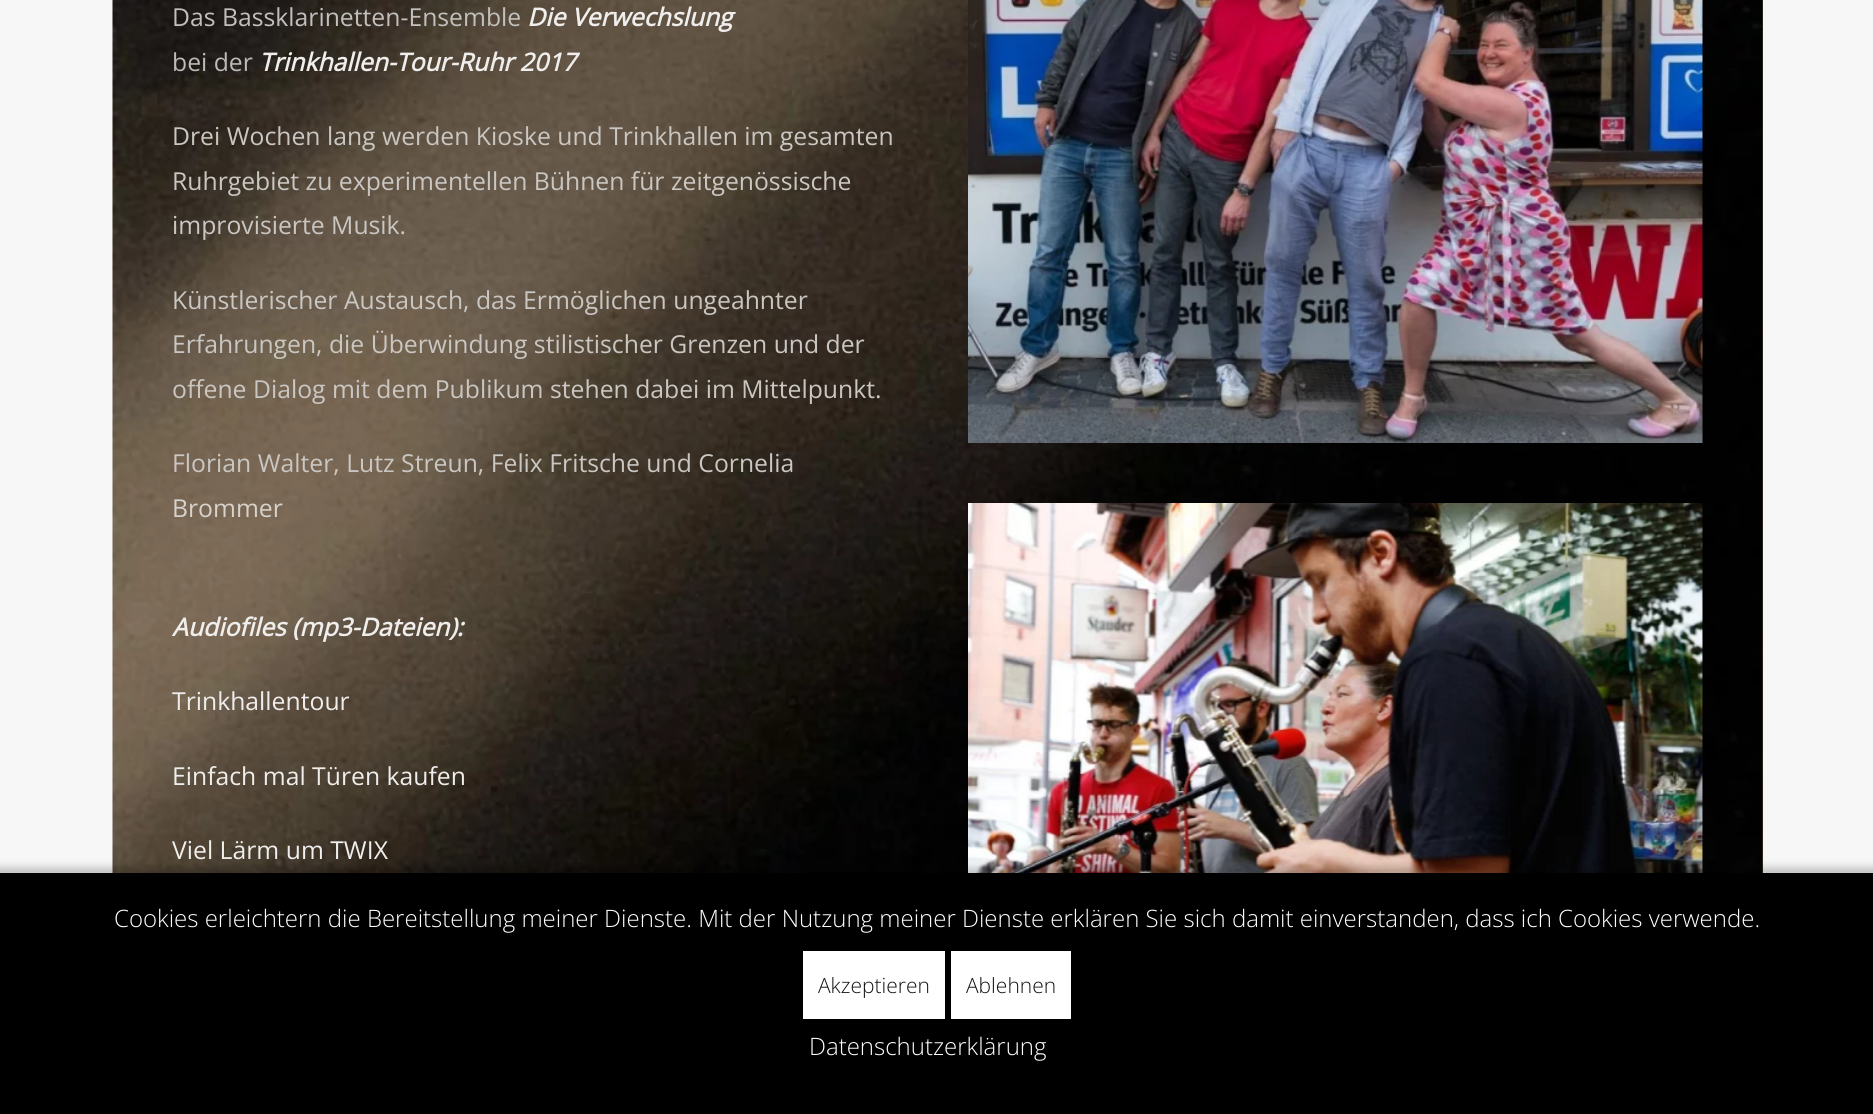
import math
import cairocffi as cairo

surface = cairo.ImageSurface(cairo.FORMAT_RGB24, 1873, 1114)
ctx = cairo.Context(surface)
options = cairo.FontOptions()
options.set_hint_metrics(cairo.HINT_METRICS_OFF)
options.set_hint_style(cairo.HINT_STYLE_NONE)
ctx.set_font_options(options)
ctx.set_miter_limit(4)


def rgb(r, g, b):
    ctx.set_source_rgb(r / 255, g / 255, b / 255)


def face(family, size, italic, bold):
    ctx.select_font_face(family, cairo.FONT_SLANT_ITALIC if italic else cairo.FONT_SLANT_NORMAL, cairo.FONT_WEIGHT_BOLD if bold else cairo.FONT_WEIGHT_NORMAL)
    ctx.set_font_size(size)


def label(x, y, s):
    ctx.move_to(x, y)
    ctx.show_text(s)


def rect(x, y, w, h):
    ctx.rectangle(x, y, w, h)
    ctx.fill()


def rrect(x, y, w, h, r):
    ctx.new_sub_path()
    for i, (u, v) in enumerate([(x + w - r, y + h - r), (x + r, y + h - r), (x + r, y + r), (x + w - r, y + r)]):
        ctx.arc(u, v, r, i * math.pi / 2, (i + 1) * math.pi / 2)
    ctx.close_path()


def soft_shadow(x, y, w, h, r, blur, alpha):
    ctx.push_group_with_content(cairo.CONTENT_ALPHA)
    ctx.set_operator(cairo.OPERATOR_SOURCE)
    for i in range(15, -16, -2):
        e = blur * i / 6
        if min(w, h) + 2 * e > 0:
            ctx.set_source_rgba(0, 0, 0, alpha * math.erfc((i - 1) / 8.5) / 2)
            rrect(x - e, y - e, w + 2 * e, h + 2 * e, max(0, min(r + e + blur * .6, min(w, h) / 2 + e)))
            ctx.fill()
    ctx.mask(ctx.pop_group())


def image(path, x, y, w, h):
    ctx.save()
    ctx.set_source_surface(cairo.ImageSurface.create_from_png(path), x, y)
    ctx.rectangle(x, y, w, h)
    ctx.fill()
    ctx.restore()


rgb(247, 247, 247)
ctx.paint()
gradient = cairo.LinearGradient(131, -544, 1745, 1070)
gradient.add_color_stop_rgba(0, 0.184, 0.149, 0.114, 1)
gradient.add_color_stop_rgba(1, 0.349, 0.302, 0.247, 1)
ctx.set_source(gradient)
rect(1762, 0, 1, 873)
image('image0.png', 112, 0, 1651, 873)
face('Open Sans', 24.75, 0, 0)
rgb(194, 192, 189)
label(172, 26, 'Das Bassklarinetten-Ensemble')
face('Open Sans', 24.75, 1, 1)
rgb(239, 238, 236)
label(527, 26, 'Die Verwechslung')
face('Open Sans', 24.75, 0, 0)
rgb(188, 187, 186)
label(172, 71, 'bei der')
face('Open Sans', 24.75, 1, 1)
rgb(239, 238, 236)
label(259, 71, 'Trinkhallen-Tour-Ruhr 2017')
face('Open Sans', 24.75, 0, 0)
rgb(202, 199, 195)
label(172, 145, 'Drei Wochen lang werden Kioske und Trinkhallen im gesamten')
label(172, 190, 'Ruhrgebiet zu experimentellen Bühnen für zeitgenössische')
label(172, 234, 'improvisierte Musik.')
label(172, 309, 'Künstlerischer Austausch, das Ermöglichen ungeahnter')
label(172, 353, 'Erfahrungen, die Überwindung stilistischer Grenzen und der')
label(172, 398, 'offene Dialog mit dem Publikum stehen dabei im Mittelpunkt.')
label(172, 472, 'Florian Walter, Lutz Streun, Felix Fritsche und Cornelia')
rgb(215, 210, 204)
label(172, 517, 'Brommer')
face('Open Sans', 24.75, 1, 1)
rgb(239, 238, 236)
label(172, 636, 'Audiofiles (mp3-Dateien):')
face('Open Sans', 24.75, 0, 0)
label(172, 710, 'Trinkhallentour')
label(172, 785, 'Einfach mal Türen kaufen')
label(172, 859, 'Viel Lärm um TWIX')
image('image1.png', 968, 0, 735, 443)
image('image2.png', 968, 503, 735, 370)
rgb(0, 0, 0)
soft_shadow(-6, 867, 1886, 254, 0, 4, 0.21)
rgb(0, 0, 0)
rect(0, 873, 1873, 241)
face('Open Sans Light', 24, 0, 0)
rgb(255, 255, 255)
label(114, 927, 'Cookies erleichtern die Bereitstellung meiner Dienste. Mit der Nutzung meiner Dienste erklären Sie sich damit einverstanden, dass ich Cookies verwende.')
rect(803, 951, 142, 68)
face('Open Sans Light', 21, 0, 0)
rgb(17, 17, 17)
label(818, 993, 'Akzeptieren')
rgb(255, 255, 255)
rect(951, 951, 120, 68)
rgb(17, 17, 17)
label(966, 993, 'Ablehnen')
face('Open Sans Light', 24, 0, 0)
rgb(255, 255, 255)
label(809, 1055, 'Datenschutzerklärung')
surface.write_to_png('render.png')
